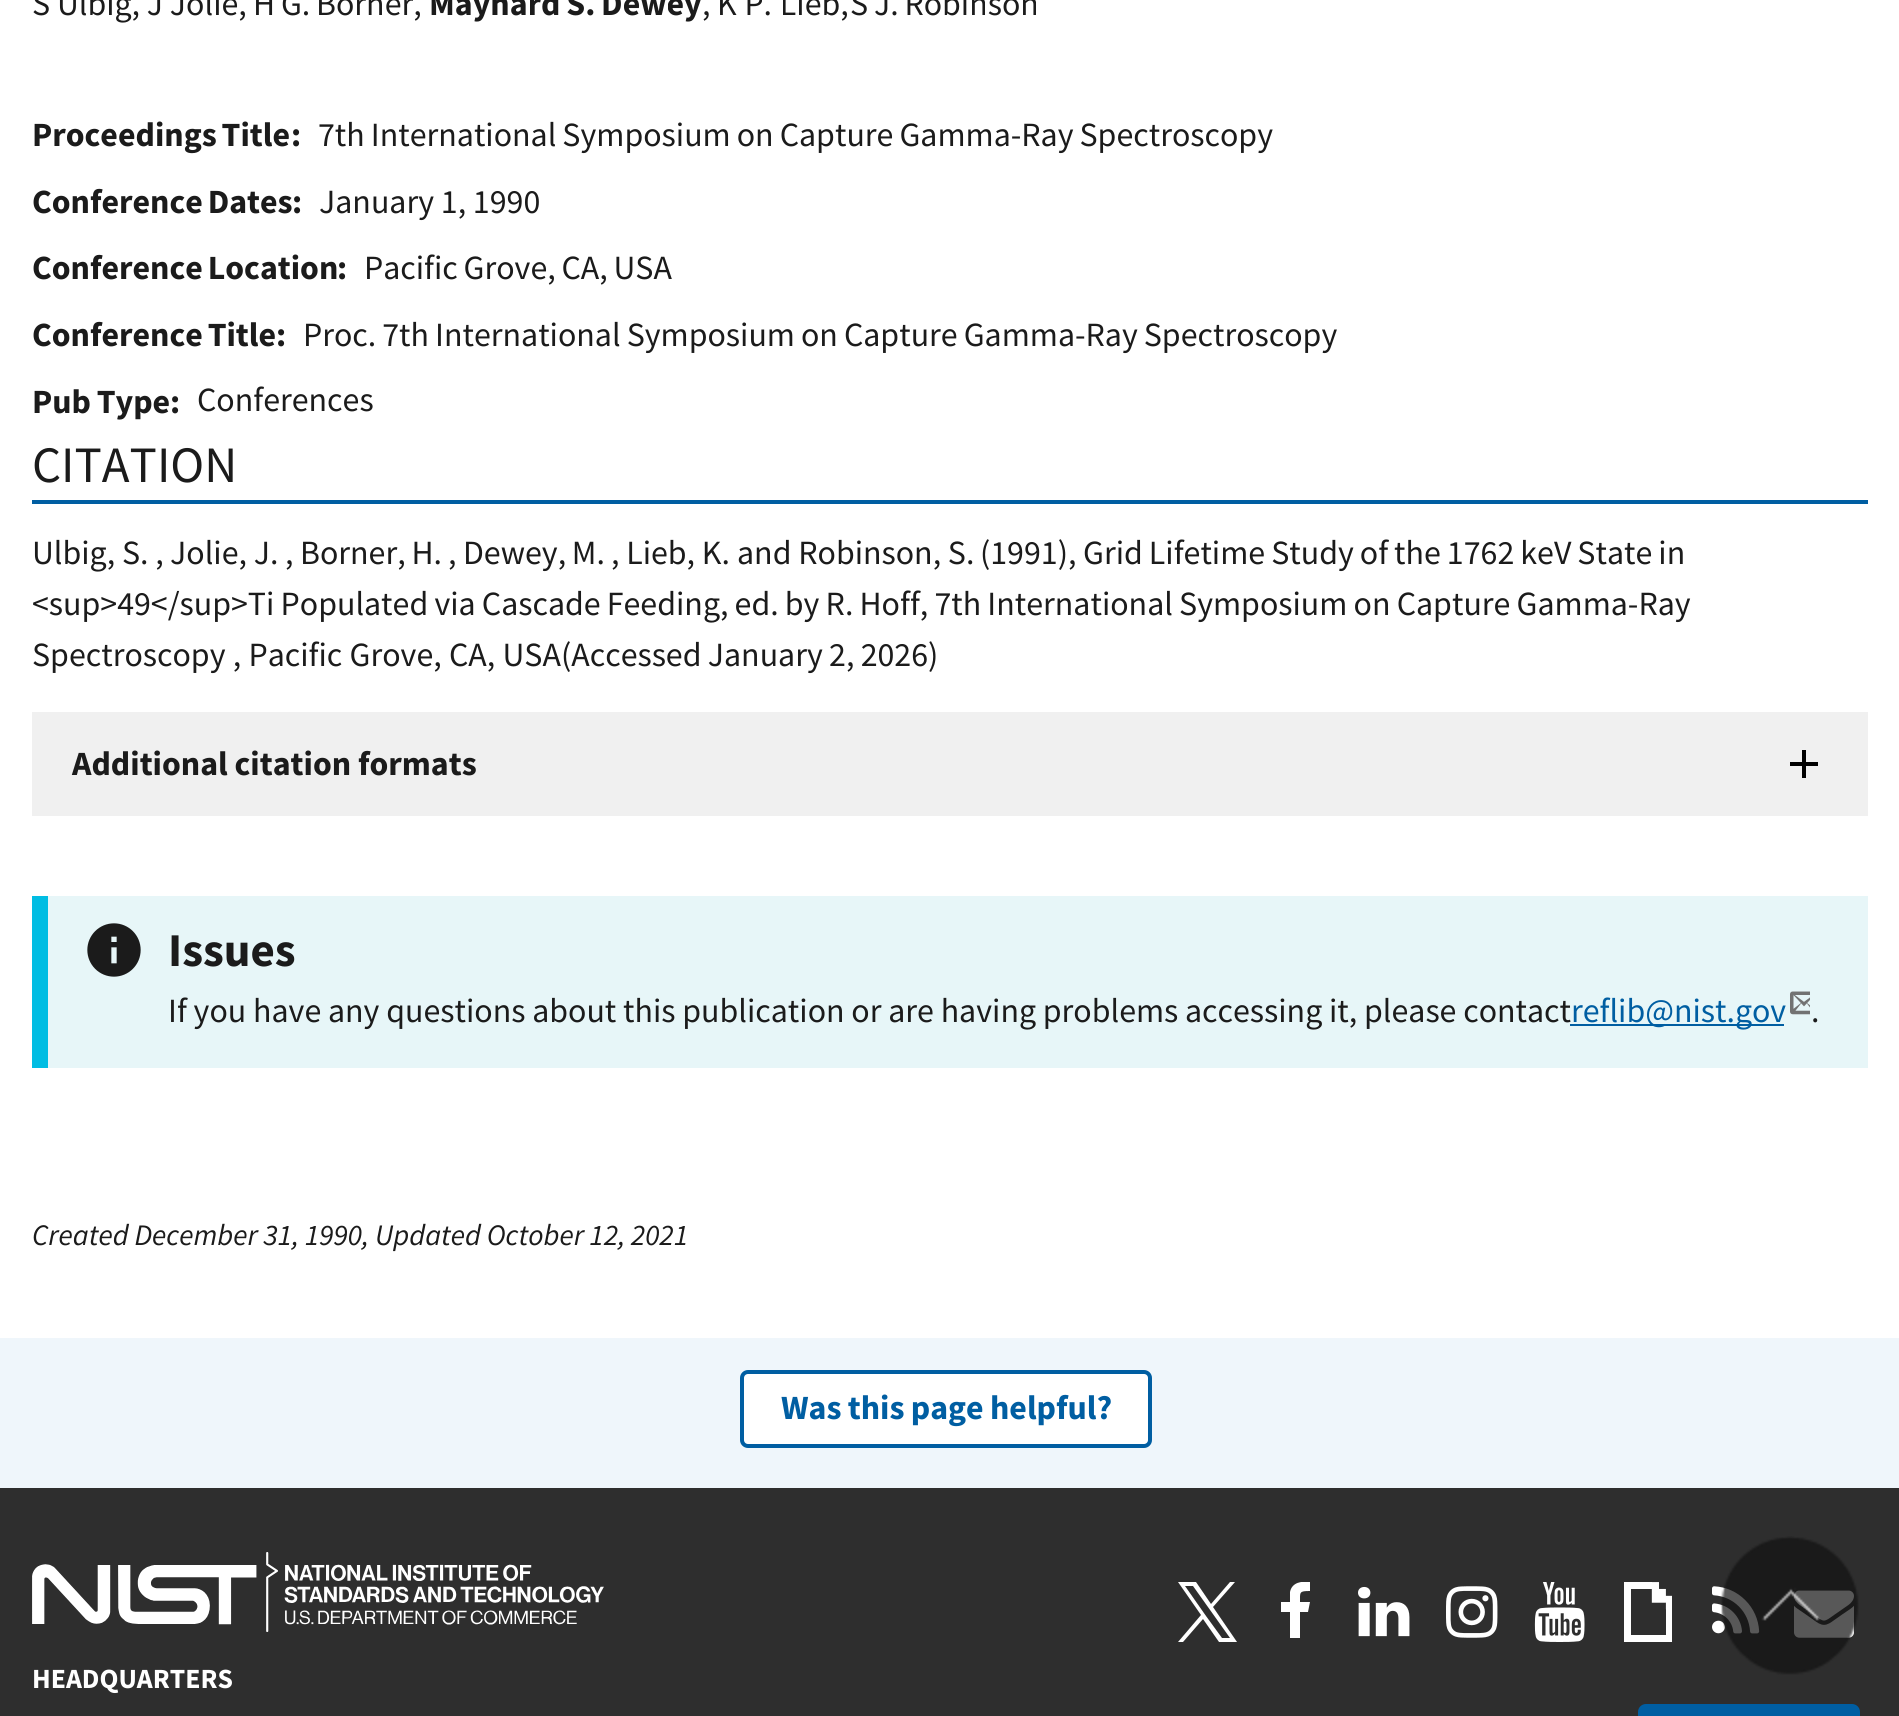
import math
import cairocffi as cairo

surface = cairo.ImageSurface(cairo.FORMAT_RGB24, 1899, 1716)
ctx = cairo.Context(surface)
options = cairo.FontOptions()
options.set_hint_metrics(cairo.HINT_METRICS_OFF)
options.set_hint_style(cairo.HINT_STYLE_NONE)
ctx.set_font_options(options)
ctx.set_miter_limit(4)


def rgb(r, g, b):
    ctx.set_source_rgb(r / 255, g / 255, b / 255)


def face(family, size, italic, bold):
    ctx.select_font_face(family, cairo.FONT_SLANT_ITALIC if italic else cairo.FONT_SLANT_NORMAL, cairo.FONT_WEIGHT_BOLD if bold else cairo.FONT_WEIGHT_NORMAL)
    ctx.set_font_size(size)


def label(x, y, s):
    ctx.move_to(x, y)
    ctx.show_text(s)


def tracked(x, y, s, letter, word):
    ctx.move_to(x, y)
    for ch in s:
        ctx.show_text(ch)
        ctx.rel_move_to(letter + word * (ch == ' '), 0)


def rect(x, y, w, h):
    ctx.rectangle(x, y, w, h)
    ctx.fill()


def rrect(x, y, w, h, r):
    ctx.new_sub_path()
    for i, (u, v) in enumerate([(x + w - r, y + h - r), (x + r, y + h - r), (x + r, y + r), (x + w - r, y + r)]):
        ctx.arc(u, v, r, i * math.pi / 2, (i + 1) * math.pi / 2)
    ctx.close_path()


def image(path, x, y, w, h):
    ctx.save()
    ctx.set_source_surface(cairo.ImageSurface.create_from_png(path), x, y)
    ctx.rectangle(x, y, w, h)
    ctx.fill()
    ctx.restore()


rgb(255, 255, 255)
ctx.paint()
face('Source Sans Pro', 33.9, 0, 0)
rgb(27, 27, 27)
label(32, 15, 'S Ulbig, J Jolie,')
tracked(253, 15, 'H G. Borner,', 0, -1)
face('Source Sans Pro', 33.9, 0, 1)
tracked(429, 15, 'Maynard S. Dewey', 0, -1)
face('Source Sans Pro', 33.9, 0, 0)
label(702, 15, ',')
tracked(717, 15, 'K P. Lieb,', 0, 1)
tracked(850, 15, 'S J. Robinson', 0, -1)
face('Source Sans Pro', 33.9, 0, 1)
tracked(32, 146, 'Proceedings Title', 0, -2)
label(291, 146, ':')
face('Source Sans Pro', 33.9, 0, 0)
tracked(318, 146, '7th International Symposium on Capture Gamma-Ray Spectroscopy', 0, -0.75)
face('Source Sans Pro', 33.9, 0, 1)
tracked(32, 213, 'Conference Dates', 0, -2)
label(292, 213, ':')
face('Source Sans Pro', 33.9, 0, 0)
label(319, 213, 'January 1, 1990')
face('Source Sans Pro', 33.9, 0, 1)
tracked(32, 279, 'Conference Location', 0, -2)
label(337, 279, ':')
face('Source Sans Pro', 33.9, 0, 0)
tracked(364, 279, 'Pacific Grove, CA, USA', 0, -1)
face('Source Sans Pro', 33.9, 0, 1)
tracked(32, 346, 'Conference Title', 0, -2)
label(276, 346, ':')
face('Source Sans Pro', 33.9, 0, 0)
tracked(303, 346, 'Proc. 7th International Symposium on Capture Gamma-Ray Spectroscopy', 0, -0.75)
face('Source Sans Pro', 33.9, 0, 1)
tracked(32, 413, 'Pub Type', 0, -1)
label(170, 413, ':')
face('Source Sans Pro', 33.9, 0, 0)
label(197, 411, 'Conferences')
rgb(0, 94, 162)
rect(32, 500, 1836, 4)
face('Source Sans Pro', 51, 0, 0)
rgb(27, 27, 27)
label(32, 482, 'CITATION')
face('Source Sans Pro', 33.9, 0, 0)
label(32, 564, 'Ulbig, S. ,')
label(170, 564, 'Jolie, J.')
label(285, 564, ',')
tracked(300, 564, 'Borner, H.', 0, -1)
label(448, 564, ',')
tracked(463, 564, 'Dewey, M.', 0, -1)
label(611, 564, ', Lieb, K.')
label(737, 564, 'and Robinson, S.')
label(980, 564, '(1991),')
tracked(1083, 564, 'Grid Lifetime Study of the 1762 keV State in', 0, -0.75)
tracked(32, 615, '<sup>49</sup>Ti Populated via Cascade Feeding, ed. by R. Hoff, 7th International Symposium on Capture Gamma-Ray', 0, -0.6)
tracked(32, 666, 'Spectroscopy , Pacific Grove, CA, USA', 0, 0.5)
tracked(561, 666, '(Accessed January 2, 2026)', 0, -0.5)
rgb(240, 240, 240)
rect(32, 712, 1836, 104)
image('image0.png', 1790, 750, 28, 28)
face('Source Sans Pro', 33.9, 0, 1)
rgb(27, 27, 27)
label(72, 775, 'Additional citation formats')
rgb(231, 246, 248)
rect(48, 896, 1820, 172)
rgb(0, 189, 227)
rect(32, 896, 16, 172)
image('image1.png', 87, 923, 54, 54)
face('Source Sans Pro', 47, 0, 1)
rgb(27, 27, 27)
label(168, 966, 'Issues')
face('Source Sans Pro', 33.9, 0, 0)
label(168, 1022, 'If you have any questions about this publication or are having problems accessing it, please contact')
rgb(0, 94, 162)
rect(1570, 1024, 214, 2)
label(1571, 1022, 'reflib@nist.gov')
image('image2.png', 1790, 991, 20, 24)
rgb(27, 27, 27)
label(1811, 1022, '.')
face('Source Sans Pro', 29.75, 1, 0)
tracked(32, 1245, 'Created December 31, 1990, Updated October 12, 2021', 0, -0.25)
rgb(239, 246, 251)
rect(0, 1338, 1899, 150)
rgb(255, 255, 255)
rrect(742, 1372, 408, 74, 6)
ctx.fill_preserve()
rgb(0, 94, 162)
ctx.set_line_width(4)
ctx.stroke()
face('Source Sans Pro', 33.9, 0, 1)
tracked(781, 1419, 'Was this page helpful?', 0, -0.5)
rgb(46, 46, 46)
rect(0, 1488, 1899, 228)
image('image3.png', 32, 1552, 572, 80)
face('Source Sans Pro', 27.75, 0, 1)
rgb(255, 255, 255)
label(32, 1688, 'HEADQUARTERS')
ctx.new_path()
ctx.move_to(1213, 1607)
ctx.line_to(1235, 1582)
ctx.line_to(1230, 1582)
ctx.line_to(1211, 1604)
ctx.line_to(1196, 1582)
ctx.line_to(1178, 1582)
ctx.line_to(1201, 1615)
ctx.line_to(1178, 1642)
ctx.line_to(1183, 1642)
ctx.line_to(1203, 1619)
ctx.line_to(1219, 1642)
ctx.line_to(1237, 1642)
ctx.close_path()
ctx.move_to(1206, 1616)
ctx.line_to(1185, 1586)
ctx.line_to(1193, 1586)
ctx.line_to(1230, 1638)
ctx.line_to(1222, 1638)
ctx.close_path()
ctx.fill()
ctx.save()
ctx.rectangle(1278, 1582, 36, 60)
ctx.clip()
ctx.new_path()
ctx.move_to(1310, 1582)
ctx.line_to(1310, 1591)
ctx.curve_to(1299, 1591, 1300, 1592, 1300, 1602)
ctx.line_to(1310, 1602)
ctx.line_to(1308, 1612)
ctx.line_to(1300, 1612)
ctx.line_to(1300, 1638)
ctx.line_to(1290, 1638)
ctx.line_to(1290, 1612)
ctx.line_to(1281, 1612)
ctx.line_to(1281, 1602)
ctx.line_to(1290, 1602)
ctx.line_to(1290, 1592)
ctx.curve_to(1292, 1582, 1302, 1581, 1310, 1582)
ctx.close_path()
ctx.fill()
ctx.restore()
image('image4.png', 1358, 1586, 52, 51)
image('image5.png', 1446, 1586, 52, 52)
image('image6.png', 1534, 1582, 51, 60)
image('image7.png', 1624, 1582, 48, 60)
image('image8.png', 1712, 1586, 48, 48)
image('image9.png', 1794, 1590, 60, 48)
rgb(0, 94, 162)
rrect(1638, 1704, 222, 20, 8)
ctx.fill()
image('image10.png', 1720, 1536, 139, 139)
surface.write_to_png('render.png')
